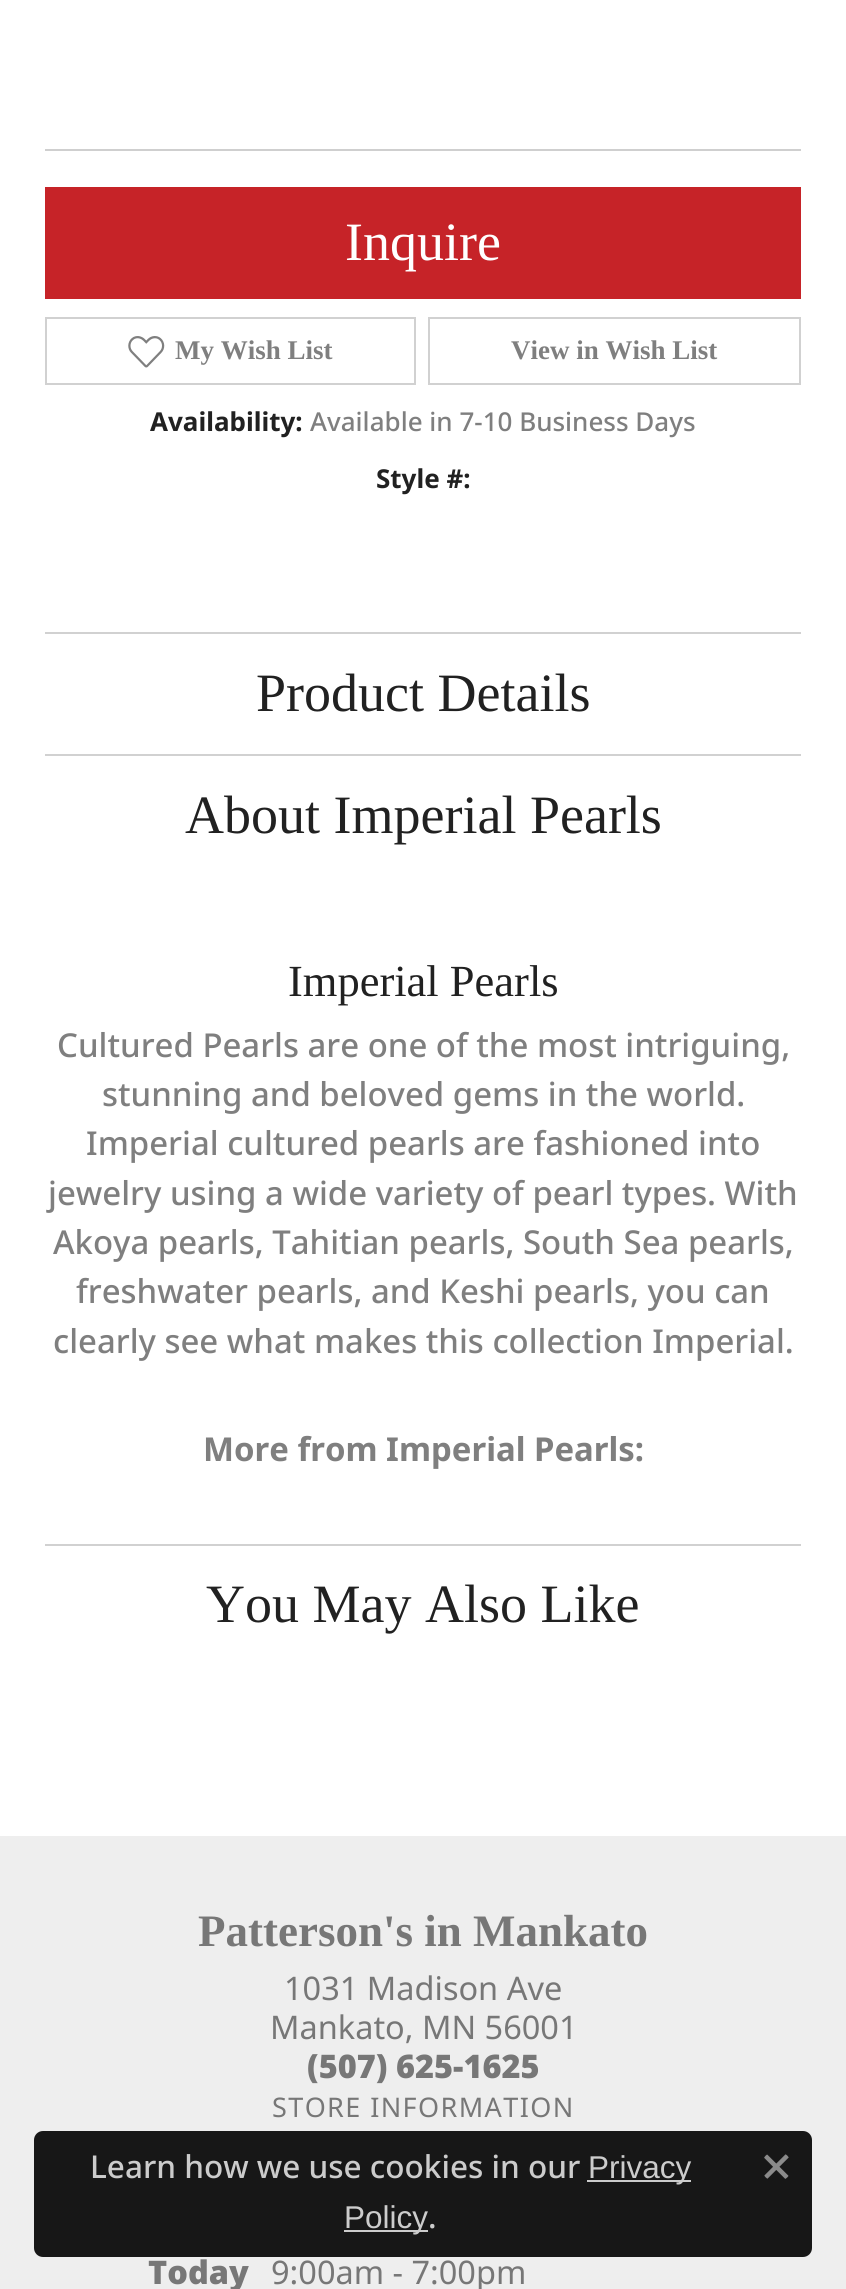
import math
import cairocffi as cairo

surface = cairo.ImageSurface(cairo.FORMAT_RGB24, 846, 2289)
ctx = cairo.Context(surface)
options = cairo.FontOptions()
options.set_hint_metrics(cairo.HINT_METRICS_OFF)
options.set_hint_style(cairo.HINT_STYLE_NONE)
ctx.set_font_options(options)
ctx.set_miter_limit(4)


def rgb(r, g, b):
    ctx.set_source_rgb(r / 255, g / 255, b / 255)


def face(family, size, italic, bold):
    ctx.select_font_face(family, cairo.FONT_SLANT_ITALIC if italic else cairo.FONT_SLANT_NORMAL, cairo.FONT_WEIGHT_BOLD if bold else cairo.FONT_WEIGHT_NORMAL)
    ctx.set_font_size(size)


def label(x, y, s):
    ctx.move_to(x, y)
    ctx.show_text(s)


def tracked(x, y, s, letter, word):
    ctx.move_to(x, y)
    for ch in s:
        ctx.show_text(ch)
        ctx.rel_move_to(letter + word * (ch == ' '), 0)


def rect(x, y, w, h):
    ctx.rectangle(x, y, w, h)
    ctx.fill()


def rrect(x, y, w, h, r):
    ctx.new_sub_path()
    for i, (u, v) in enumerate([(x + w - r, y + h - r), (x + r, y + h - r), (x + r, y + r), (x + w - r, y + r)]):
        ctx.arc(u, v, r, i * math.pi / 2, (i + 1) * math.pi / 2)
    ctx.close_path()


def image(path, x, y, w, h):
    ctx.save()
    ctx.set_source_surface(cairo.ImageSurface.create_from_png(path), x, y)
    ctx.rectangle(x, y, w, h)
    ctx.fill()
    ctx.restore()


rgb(238, 238, 238)
ctx.paint()
rgb(255, 255, 255)
rect(0, 0, 846, 1836)
rgb(207, 207, 207)
rect(45, 149, 756, 2)
rgb(198, 35, 40)
rect(45, 187, 756, 112)
face('Liberation Serif', 54, 0, 0)
rgb(255, 255, 255)
label(345, 260, 'Inquire')
ctx.rectangle(46, 318, 369, 66)
rgb(209, 209, 209)
ctx.stroke()
image('image0.png', 128, 336, 37, 32)
face('Liberation Serif', 27, 0, 1)
rgb(127, 127, 127)
label(175, 359, 'My Wish List')
ctx.rectangle(429, 318, 371, 66)
rgb(209, 209, 209)
ctx.stroke()
rgb(127, 127, 127)
label(511, 359, 'View in Wish List')
face('Noto Sans', 26, 0, 1)
rgb(33, 33, 33)
label(150, 431, 'Availability:')
face('Noto Sans Medium', 26, 0, 0)
rgb(127, 127, 127)
label(310, 431, 'Available in 7-10 Business Days')
face('Noto Sans', 26, 0, 1)
rgb(33, 33, 33)
label(376, 488, 'Style #:')
rgb(209, 209, 209)
rect(45, 632, 756, 2)
face('Liberation Serif', 54, 0, 0)
rgb(33, 33, 33)
label(256, 711, 'Product Details')
rgb(209, 209, 209)
rect(45, 754, 756, 2)
rgb(33, 33, 33)
label(185, 833, 'About Imperial Pearls')
face('Liberation Serif', 44.5, 0, 0)
label(288, 996, 'Imperial Pearls')
face('Noto Sans Medium', 32.9, 0, 0)
rgb(127, 127, 127)
label(57, 1057, 'Cultured Pearls are one of the most intriguing,')
label(102, 1106, 'stunning and beloved gems in the world.')
label(86, 1155, 'Imperial cultured pearls are fashioned into')
label(48, 1205, 'jewelry using a wide variety of pearl types. With')
label(53, 1254, 'Akoya pearls, Tahitian pearls, South Sea pearls,')
label(76, 1303, 'freshwater pearls, and Keshi pearls, you can')
label(53, 1353, 'clearly see what makes this collection Imperial.')
face('Noto Sans', 32.9, 0, 1)
label(203, 1461, 'More from Imperial Pearls:')
rgb(209, 209, 209)
rect(45, 1544, 756, 2)
face('Liberation Serif', 54, 0, 0)
rgb(33, 33, 33)
label(206, 1622, 'You May Also Like')
face('Liberation Serif', 45, 0, 1)
rgb(119, 119, 119)
label(198, 1946, 'Patterson\'s in Mankato')
face('Noto Sans', 32.5, 0, 0)
label(284, 2000, '1031 Madison Ave')
label(270, 2039, 'Mankato, MN 56001')
face('Noto Sans Black', 32.5, 0, 0)
label(307, 2078, '(507) 625-1625')
face('Noto Sans', 27, 0, 0)
tracked(272, 2117, 'STORE INFORMATION', 1.4, 0)
face('Noto Sans Black', 32.5, 0, 0)
label(148, 2284, 'Today')
face('Noto Sans', 32.5, 0, 0)
label(271, 2284, '9:00am - 7:00pm')
ctx.set_source_rgba(0, 0, 0, 0.9)
rrect(34, 2131, 778, 126, 9)
ctx.fill()
face('Noto Sans Medium', 31.5, 0, 0)
rgb(204, 204, 204)
label(90, 2178, 'Learn how we use cookies in our')
rect(587, 2180, 104, 2)
face('Liberation Sans', 31.5, 0, 0)
label(588, 2178, 'Privacy')
rect(344, 2230, 84, 2)
label(344, 2228, 'Policy')
face('Noto Sans Medium', 31.5, 0, 0)
label(428, 2228, '.')
image('image1.png', 764, 2154, 25, 25)
surface.write_to_png('render.png')
